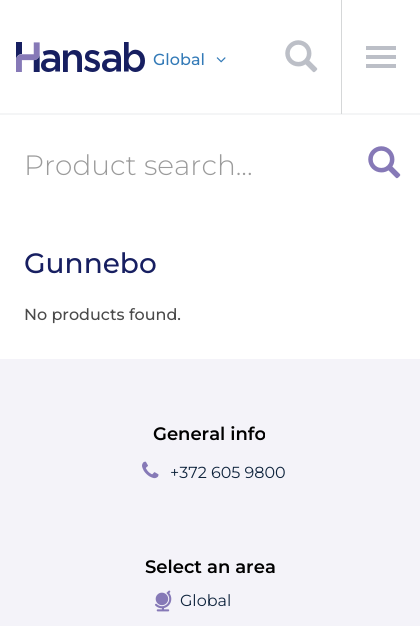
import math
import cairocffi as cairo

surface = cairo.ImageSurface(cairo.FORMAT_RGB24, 420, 626)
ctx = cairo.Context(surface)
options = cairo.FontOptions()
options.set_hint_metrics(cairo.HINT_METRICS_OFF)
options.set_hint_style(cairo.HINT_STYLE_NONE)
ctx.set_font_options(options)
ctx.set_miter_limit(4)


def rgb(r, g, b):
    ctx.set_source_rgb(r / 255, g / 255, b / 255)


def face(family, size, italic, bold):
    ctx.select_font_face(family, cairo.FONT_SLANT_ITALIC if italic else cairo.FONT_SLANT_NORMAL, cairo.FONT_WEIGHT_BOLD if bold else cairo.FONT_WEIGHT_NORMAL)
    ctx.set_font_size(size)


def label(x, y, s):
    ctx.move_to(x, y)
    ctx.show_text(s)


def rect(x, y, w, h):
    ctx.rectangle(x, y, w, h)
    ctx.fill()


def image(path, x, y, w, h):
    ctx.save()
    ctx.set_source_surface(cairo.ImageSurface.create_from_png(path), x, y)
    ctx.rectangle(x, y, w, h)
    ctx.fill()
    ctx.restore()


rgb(255, 255, 255)
ctx.paint()
rgb(244, 245, 246)
rect(0, 113, 420, 2)
image('image0.png', 16, 42, 129, 30)
face('Montserrat Medium', 16, 0, 0)
rgb(51, 122, 183)
label(153, 65, 'Global')
image('image1.png', 216, 57, 10, 6)
rgb(188, 191, 199)
rect(366, 46, 30, 4)
rect(366, 55, 30, 4)
rect(366, 64, 30, 4)
rgb(213, 215, 216)
rect(341, 0, 1, 114)
image('image2.png', 285, 40, 33, 33)
face('Montserrat Light', 28, 0, 0)
rgb(155, 155, 155)
label(24, 175, 'Product search...')
image('image3.png', 368, 146, 33, 33)
face('Montserrat Medium', 28, 0, 0)
rgb(23, 31, 97)
label(24, 273, 'Gunnebo')
face('Montserrat Medium', 16, 0, 0)
rgb(74, 74, 74)
label(24, 320, 'No products found.')
rgb(244, 243, 249)
rect(0, 359, 420, 267)
face('Montserrat SemiBold', 18, 0, 0)
rgb(0, 0, 0)
label(153, 440, 'General info')
image('image4.png', 142, 461, 17, 18)
face('Montserrat', 16, 0, 0)
rgb(16, 37, 62)
label(170, 478, '+372 605 9800')
face('Montserrat SemiBold', 18, 0, 0)
rgb(0, 0, 0)
label(145, 573, 'Select an area')
image('image5.png', 155, 590, 17, 22)
face('Montserrat', 16, 0, 0)
rgb(16, 37, 62)
label(180, 606, 'Global')
surface.write_to_png('render.png')
